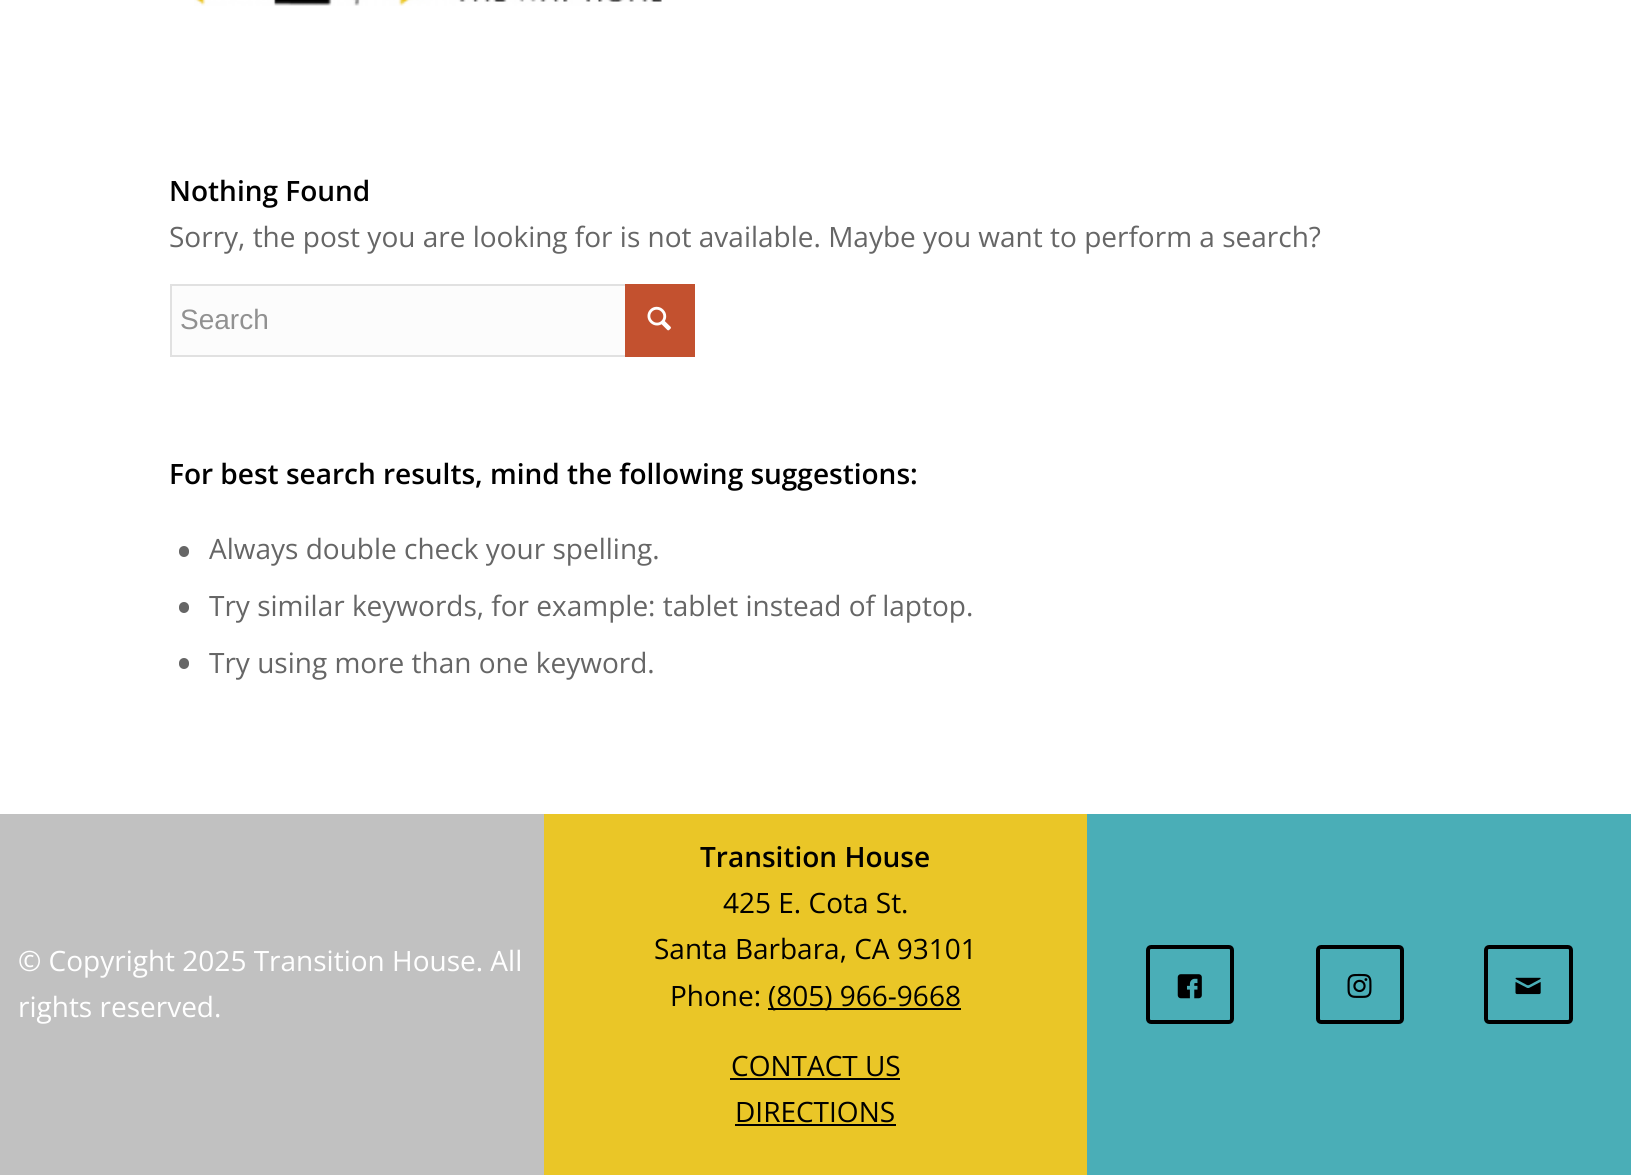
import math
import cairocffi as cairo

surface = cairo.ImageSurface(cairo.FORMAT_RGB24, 1631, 1175)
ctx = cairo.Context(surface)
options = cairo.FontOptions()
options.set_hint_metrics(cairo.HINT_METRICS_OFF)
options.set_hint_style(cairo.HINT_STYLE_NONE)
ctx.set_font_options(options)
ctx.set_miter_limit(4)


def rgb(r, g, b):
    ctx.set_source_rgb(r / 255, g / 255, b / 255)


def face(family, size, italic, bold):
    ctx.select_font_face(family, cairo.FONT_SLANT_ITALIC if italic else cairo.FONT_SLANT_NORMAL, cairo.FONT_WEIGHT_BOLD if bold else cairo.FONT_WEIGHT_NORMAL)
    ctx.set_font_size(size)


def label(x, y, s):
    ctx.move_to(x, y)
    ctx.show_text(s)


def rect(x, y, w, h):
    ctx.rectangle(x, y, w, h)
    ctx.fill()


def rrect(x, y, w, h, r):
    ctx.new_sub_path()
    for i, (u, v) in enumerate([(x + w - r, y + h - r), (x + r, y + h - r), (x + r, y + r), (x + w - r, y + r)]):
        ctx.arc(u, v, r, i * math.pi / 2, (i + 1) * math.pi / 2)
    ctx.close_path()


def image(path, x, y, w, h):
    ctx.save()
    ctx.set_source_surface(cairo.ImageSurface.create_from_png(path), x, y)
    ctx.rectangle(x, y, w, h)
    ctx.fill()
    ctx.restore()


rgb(255, 255, 255)
ctx.paint()
image('image0.png', 194, 0, 468, 6)
face('Open Sans SemiBold', 28, 0, 0)
rgb(0, 0, 0)
label(169, 201, 'Nothing Found')
face('Open Sans', 28, 0, 0)
rgb(102, 102, 102)
label(169, 247, 'Sorry, the post you are looking for is not available. Maybe you want to perform a search?')
rgb(252, 252, 252)
rect(172, 286, 453, 69)
ctx.rectangle(171, 285, 523, 71)
rgb(225, 225, 225)
ctx.stroke()
face('Liberation Sans', 28, 0, 0)
rgb(145, 145, 145)
label(180, 329, 'Search')
rgb(195, 81, 47)
rect(625, 284, 70, 73)
image('image1.png', 647, 306, 24, 25)
face('Open Sans SemiBold', 28, 0, 0)
rgb(0, 0, 0)
label(169, 484, 'For best search results, mind the following suggestions:')
rgb(102, 102, 102)
rrect(179, 546, 10, 11, 5)
ctx.fill()
face('Open Sans', 28, 0, 0)
label(209, 559, 'Always double check your spelling.')
rrect(179, 602, 10, 11, 5)
ctx.fill()
label(209, 616, 'Try similar keywords, for example: tablet instead of laptop.')
rrect(179, 658, 10, 11, 5)
ctx.fill()
label(209, 673, 'Try using more than one keyword.')
rgb(193, 193, 193)
rect(0, 814, 544, 361)
rgb(255, 255, 255)
label(18, 971, '© Copyright 2025 Transition House. All')
label(18, 1017, 'rights reserved.')
rgb(234, 198, 39)
rect(544, 814, 543, 361)
face('Open Sans SemiBold', 28, 0, 0)
rgb(0, 0, 0)
label(700, 867, 'Transition House')
face('Open Sans', 28, 0, 0)
label(723, 913, '425 E. Cota St.')
label(654, 959, 'Santa Barbara, CA 93101')
label(670, 1006, 'Phone:')
rect(768, 1008, 193, 2)
label(768, 1006, '(805) 966-9668')
label(731, 1076, 'CONTACT US')
rect(730, 1078, 170, 2)
label(735, 1122, 'DIRECTIONS')
rect(735, 1124, 161, 2)
rgb(74, 174, 183)
rect(1087, 814, 544, 361)
rrect(1148, 947, 84, 75, 3)
rgb(0, 0, 0)
ctx.set_line_width(4)
ctx.stroke()
image('image2.png', 1177, 974, 25, 25)
rrect(1318, 947, 84, 75, 3)
ctx.stroke()
image('image3.png', 1347, 973, 25, 25)
rrect(1486, 947, 85, 75, 3)
ctx.stroke()
image('image4.png', 1515, 977, 26, 18)
surface.write_to_png('render.png')
